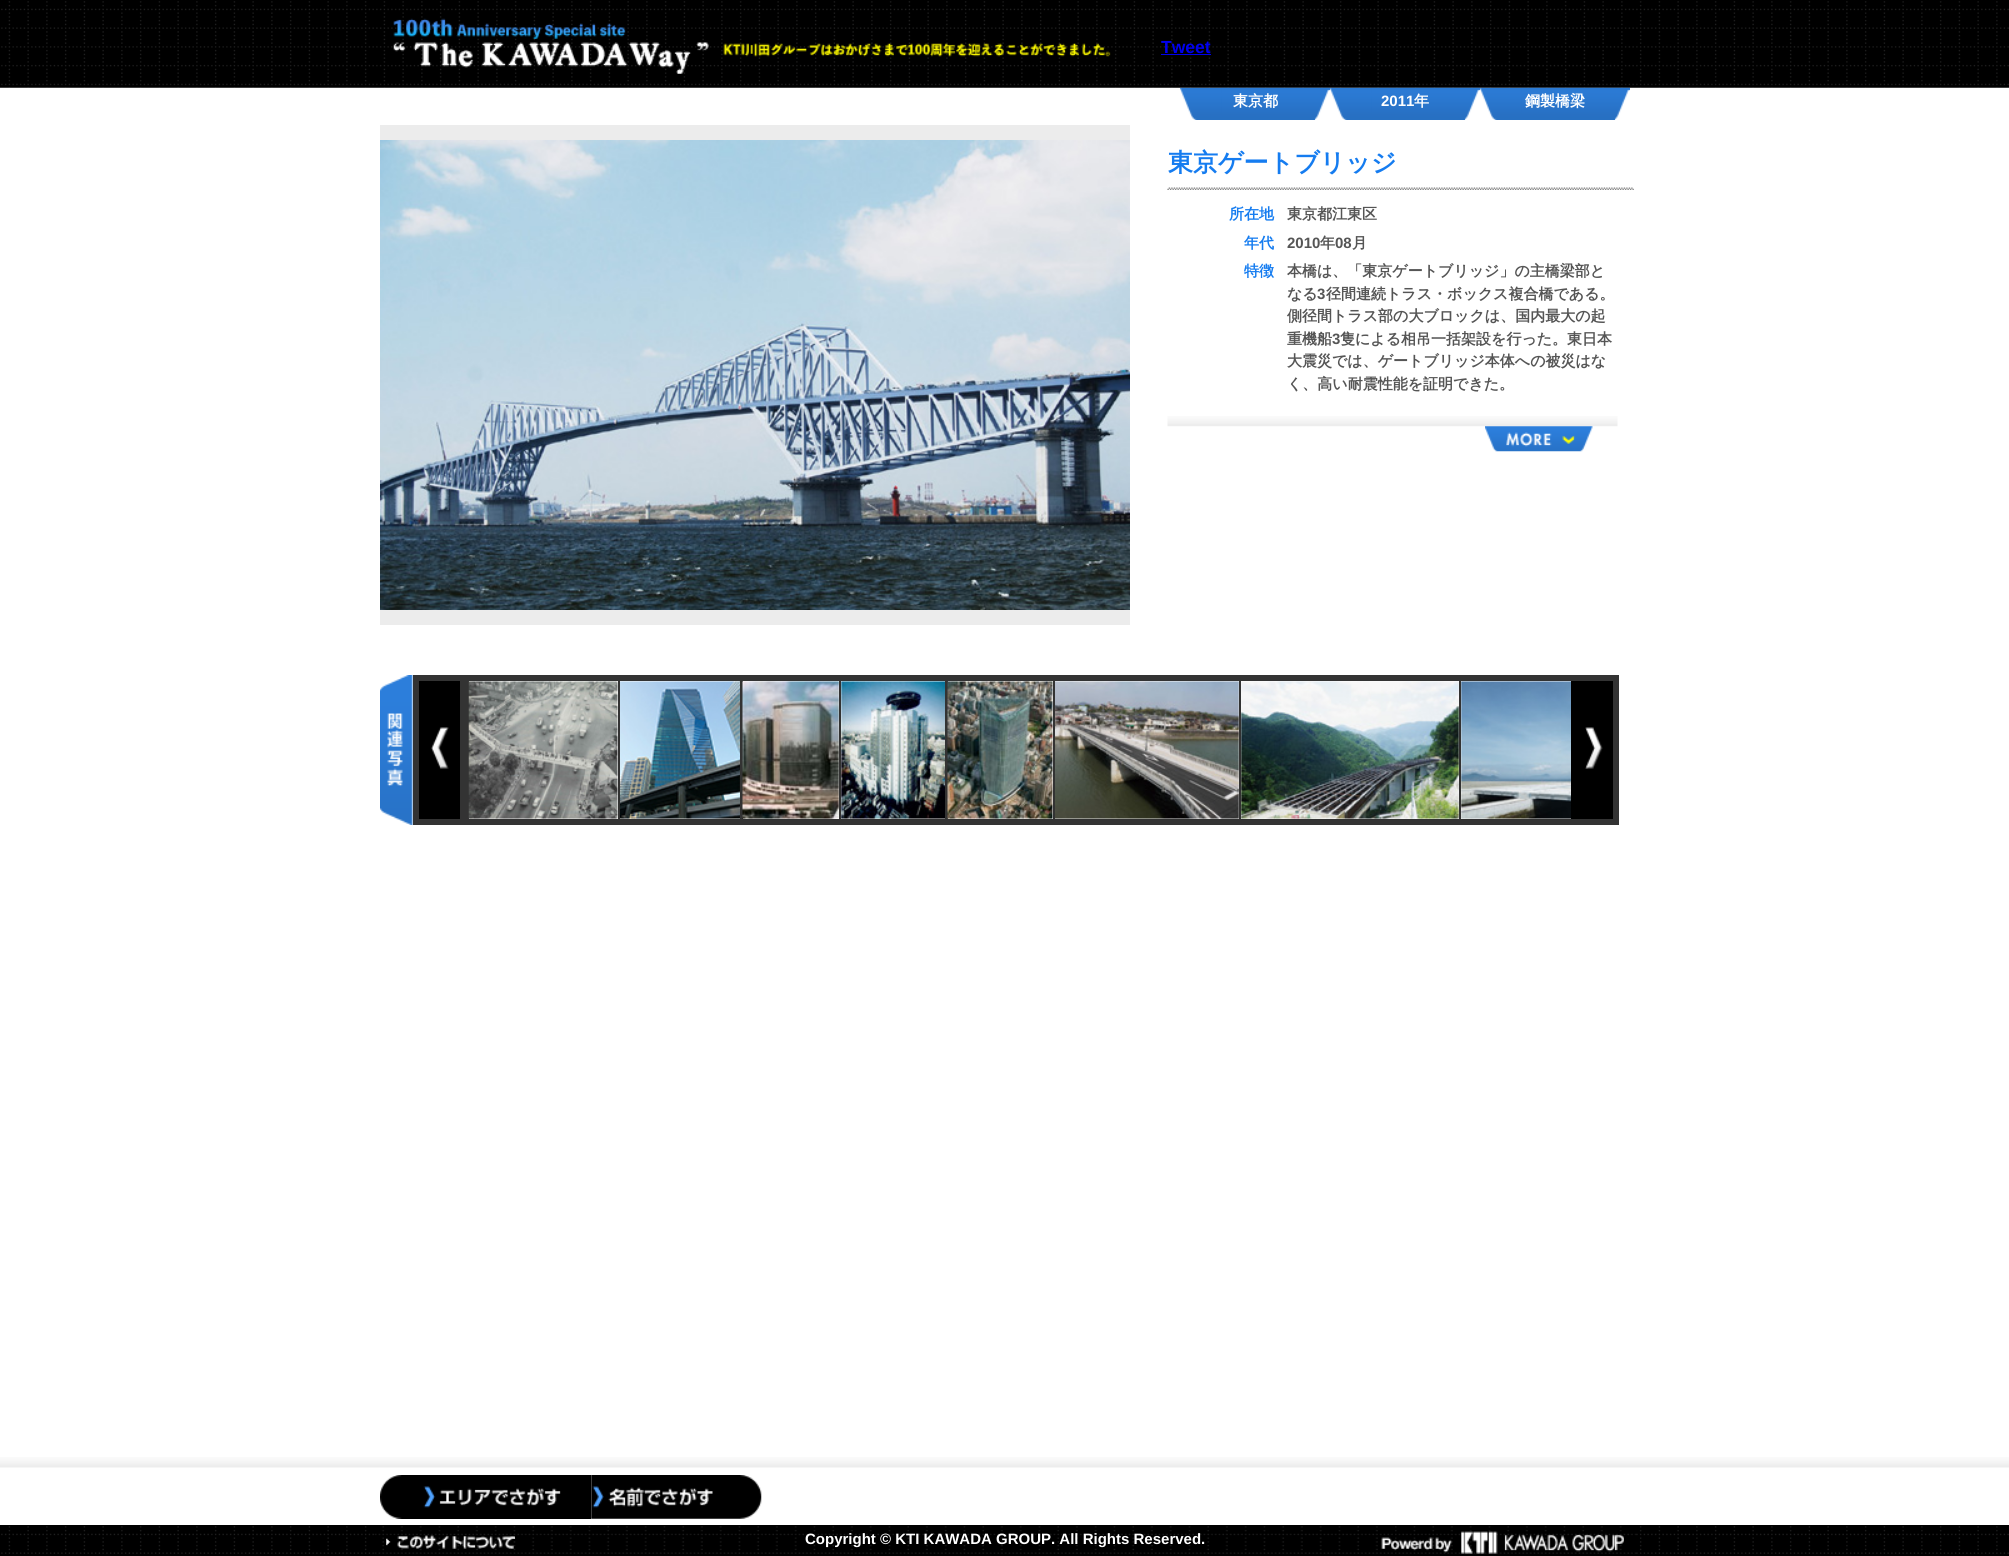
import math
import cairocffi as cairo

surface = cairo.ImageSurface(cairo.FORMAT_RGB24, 2009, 1556)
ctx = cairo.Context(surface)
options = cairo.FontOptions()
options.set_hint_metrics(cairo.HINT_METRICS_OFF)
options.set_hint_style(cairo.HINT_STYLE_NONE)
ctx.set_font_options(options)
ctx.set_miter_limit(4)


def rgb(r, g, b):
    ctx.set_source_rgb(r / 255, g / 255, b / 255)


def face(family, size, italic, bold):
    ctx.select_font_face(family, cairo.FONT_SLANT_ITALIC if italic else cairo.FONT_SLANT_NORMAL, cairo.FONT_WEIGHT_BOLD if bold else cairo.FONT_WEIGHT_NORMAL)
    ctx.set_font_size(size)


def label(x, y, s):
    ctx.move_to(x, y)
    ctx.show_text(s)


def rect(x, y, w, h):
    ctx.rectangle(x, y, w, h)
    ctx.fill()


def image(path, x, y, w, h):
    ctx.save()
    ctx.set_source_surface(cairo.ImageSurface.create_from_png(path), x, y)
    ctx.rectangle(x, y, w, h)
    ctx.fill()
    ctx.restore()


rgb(255, 255, 255)
ctx.paint()
image('image0.png', 0, 87, 2009, 1)
image('image4.png', 1180, 87, 150, 33)
image('image5.png', 1221, 87, 109, 33)
image('image4.png', 1330, 87, 150, 33)
image('image5.png', 1371, 87, 109, 33)
image('image4.png', 1480, 87, 150, 33)
image('image5.png', 1521, 87, 109, 33)
image('image1.png', 0, 0, 2009, 88)
image('image2.png', 393, 18, 316, 56)
image('image3.png', 723, 43, 388, 14)
face('Liberation Sans', 17.5, 0, 1)
rgb(0, 0, 238)
label(1161, 53, 'Tweet')
rect(1161, 54, 50, 1)
face('WenQuanYi Zen Hei', 15, 0, 1)
rgb(255, 255, 255)
label(1233, 106, '東京都')
face('Liberation Sans', 15, 0, 1)
label(1381, 106, '2011')
face('WenQuanYi Zen Hei', 15, 0, 1)
label(1414, 106, '年')
label(1525, 106, '鋼製橋梁')
image('image6.png', 380, 125, 750, 500)
image('image7.png', 380, 140, 750, 470)
image('image8.png', 1167, 416, 451, 11)
face('WenQuanYi Zen Hei', 25, 0, 1)
rgb(21, 124, 240)
label(1168, 171, '東京ゲートブリッジ')
image('image9.png', 1167, 187, 467, 3)
face('WenQuanYi Zen Hei', 15, 0, 1)
label(1229, 219, '所在地')
rgb(85, 85, 85)
label(1287, 219, '東京都江東区')
rgb(21, 124, 240)
label(1244, 248, '年代')
face('Liberation Sans', 15, 0, 1)
rgb(85, 85, 85)
label(1287, 248, '2010')
face('WenQuanYi Zen Hei', 15, 0, 1)
label(1320, 248, '年')
face('Liberation Sans', 15, 0, 1)
label(1335, 248, '08')
face('WenQuanYi Zen Hei', 15, 0, 1)
label(1352, 248, '月')
rgb(21, 124, 240)
label(1244, 276, '特徴')
rgb(85, 85, 85)
label(1287, 276, '本橋は、「東京ゲートブリッジ」の主橋梁部と')
label(1287, 299, 'なる')
face('Liberation Sans', 15, 0, 1)
label(1317, 299, '3')
face('WenQuanYi Zen Hei', 15, 0, 1)
label(1326, 299, '径間連続トラス・ボックス複合橋である。')
label(1287, 321, '側径間トラス部の大ブロックは、国内最大の起')
label(1287, 344, '重機船')
face('Liberation Sans', 15, 0, 1)
label(1332, 344, '3')
face('WenQuanYi Zen Hei', 15, 0, 1)
label(1340, 344, '隻による相吊一括架設を行った。東日本')
label(1287, 366, '大震災では、ゲートブリッジ本体への被災はな')
label(1287, 389, 'く、高い耐震性能を証明できた。')
image('image10.png', 1485, 426, 108, 26)
image('image11.png', 380, 675, 33, 150)
rgb(51, 51, 51)
rect(413, 675, 1206, 150)
rgb(0, 0, 0)
rect(419, 681, 41, 138)
image('image12.png', 431, 727, 18, 42)
rgb(255, 255, 255)
rect(469, 681, 149, 138)
image('image13.png', 468, 681, 150, 138)
rect(620, 681, 120, 138)
image('image14.png', 620, 681, 120, 138)
rect(743, 681, 96, 138)
image('image15.png', 742, 681, 97, 138)
rect(841, 681, 104, 138)
image('image16.png', 841, 681, 104, 138)
rect(948, 681, 105, 138)
image('image17.png', 947, 681, 106, 138)
rect(1055, 681, 184, 138)
image('image18.png', 1055, 681, 184, 138)
rect(1241, 681, 218, 138)
image('image19.png', 1241, 681, 218, 138)
rect(1461, 681, 110, 138)
image('image20.png', 1461, 681, 110, 138)
rgb(0, 0, 0)
rect(1571, 681, 42, 138)
image('image21.png', 1585, 727, 18, 42)
image('image22.png', 0, 1457, 2009, 11)
image('image23.png', 380, 1475, 211, 44)
image('image24.png', 591, 1475, 171, 44)
image('image25.png', 0, 1525, 2009, 31)
image('image26.png', 374, 1526, 1262, 28)
image('image27.png', 386, 1535, 129, 14)
face('Liberation Sans', 15, 0, 1)
rgb(255, 255, 255)
label(805, 1544, 'Copyright © KTI KAWADA GROUP. All Rights Reserved.')
image('image28.png', 1381, 1531, 243, 23)
surface.write_to_png('render.png')
